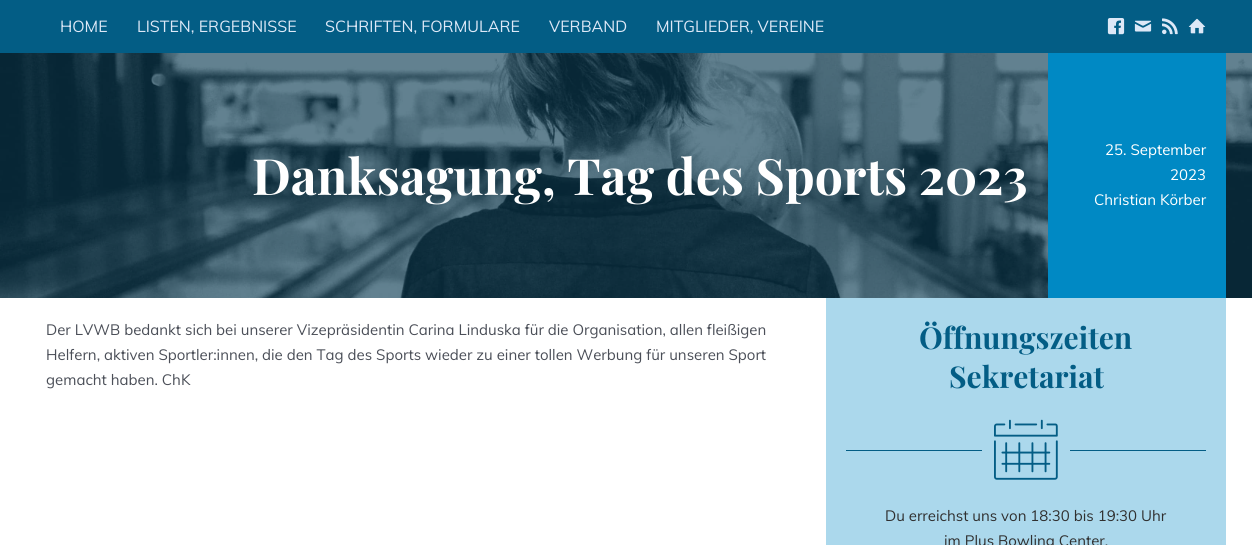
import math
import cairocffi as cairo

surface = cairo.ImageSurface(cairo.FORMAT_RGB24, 1252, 545)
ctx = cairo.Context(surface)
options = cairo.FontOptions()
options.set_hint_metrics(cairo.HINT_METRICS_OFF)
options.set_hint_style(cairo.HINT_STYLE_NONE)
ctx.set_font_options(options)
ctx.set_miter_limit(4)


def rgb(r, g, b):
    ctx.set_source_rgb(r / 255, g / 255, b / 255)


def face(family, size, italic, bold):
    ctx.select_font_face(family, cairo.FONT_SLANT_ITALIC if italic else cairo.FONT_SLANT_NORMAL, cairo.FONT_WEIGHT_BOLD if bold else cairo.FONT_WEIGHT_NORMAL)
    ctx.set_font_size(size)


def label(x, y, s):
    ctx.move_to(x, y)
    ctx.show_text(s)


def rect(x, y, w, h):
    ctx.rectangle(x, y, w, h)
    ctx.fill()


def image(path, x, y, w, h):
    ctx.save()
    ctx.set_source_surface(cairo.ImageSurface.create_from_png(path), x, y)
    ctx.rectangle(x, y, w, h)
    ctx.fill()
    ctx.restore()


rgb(255, 255, 255)
ctx.paint()
rgb(3, 93, 133)
rect(0, 0, 1252, 53)
face('Muli', 16, 0, 0)
rgb(221, 232, 247)
label(60, 32, 'HOME')
label(137, 32, 'LISTEN, ERGEBNISSE')
label(325, 32, 'SCHRIFTEN, FORMULARE')
label(549, 32, 'VERBAND')
label(656, 32, 'MITGLIEDER, VEREINE')
image('image0.png', 1107, 18, 18, 17)
image('image1.png', 1134, 20, 18, 12)
image('image2.png', 1162, 18, 16, 17)
image('image3.png', 1188, 18, 18, 16)
image('image4.png', 0, 53, 1252, 245)
face('Playfair Display', 50, 0, 1)
rgb(255, 255, 255)
label(252, 195, 'Danksagung, Tag des Sports 2023')
rgb(0, 137, 196)
rect(1048, 53, 178, 245)
face('Muli', 15, 0, 0)
rgb(255, 255, 255)
label(1105, 155, '25. September')
label(1170, 180, '2023')
label(1094, 205, 'Christian Körber')
rgb(75, 79, 88)
label(46, 335, 'Der LVWB bedankt sich bei unserer Vizepräsidentin Carina Linduska für die Organisation, allen fleißigen')
label(46, 360, 'Helfern, aktiven Sportler:innen, die den Tag des Sports wieder zu einer tollen Werbung für unseren Sport')
label(46, 385, 'gemacht haben. ChK')
rgb(171, 216, 236)
rect(826, 298, 400, 247)
face('Playfair Display', 30, 0, 1)
rgb(3, 93, 133)
label(919, 349, 'Öffnungszeiten')
label(949, 388, 'Sekretariat')
rect(846, 450, 136, 1)
image('image5.png', 994, 419, 64, 61)
rect(1070, 450, 136, 1)
face('Muli', 15, 0, 0)
rgb(48, 48, 48)
label(885, 521, 'Du erreichst uns von 18:30 bis 19:30 Uhr')
label(944, 546, 'im Plus Bowling Center.')
surface.write_to_png('render.png')
